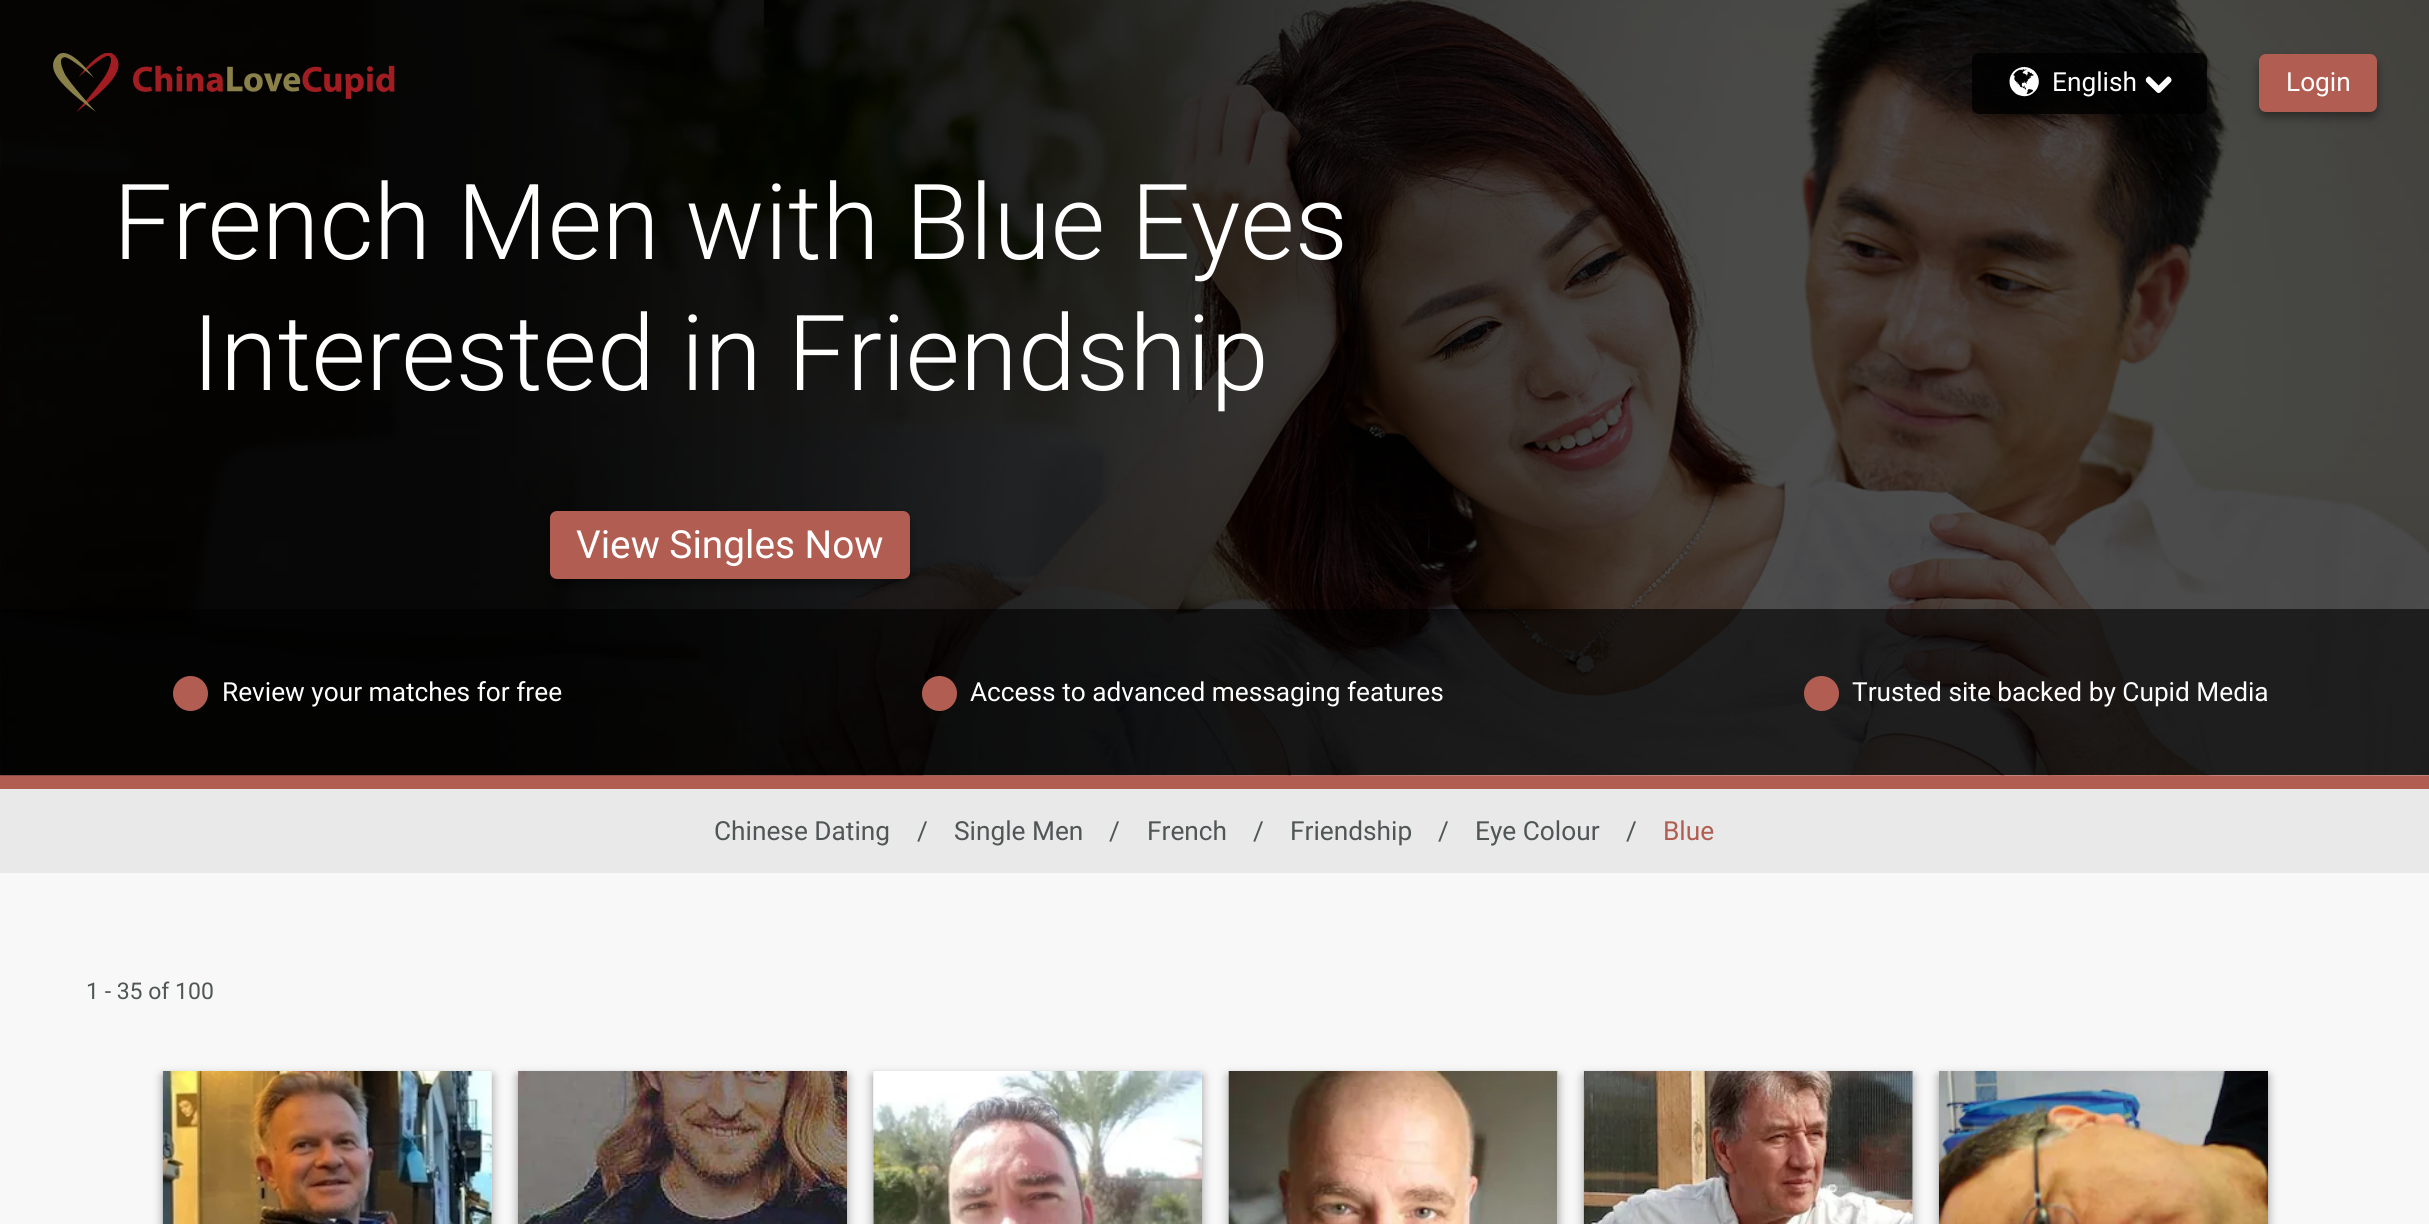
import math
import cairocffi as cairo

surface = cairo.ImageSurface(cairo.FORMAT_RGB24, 2429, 1224)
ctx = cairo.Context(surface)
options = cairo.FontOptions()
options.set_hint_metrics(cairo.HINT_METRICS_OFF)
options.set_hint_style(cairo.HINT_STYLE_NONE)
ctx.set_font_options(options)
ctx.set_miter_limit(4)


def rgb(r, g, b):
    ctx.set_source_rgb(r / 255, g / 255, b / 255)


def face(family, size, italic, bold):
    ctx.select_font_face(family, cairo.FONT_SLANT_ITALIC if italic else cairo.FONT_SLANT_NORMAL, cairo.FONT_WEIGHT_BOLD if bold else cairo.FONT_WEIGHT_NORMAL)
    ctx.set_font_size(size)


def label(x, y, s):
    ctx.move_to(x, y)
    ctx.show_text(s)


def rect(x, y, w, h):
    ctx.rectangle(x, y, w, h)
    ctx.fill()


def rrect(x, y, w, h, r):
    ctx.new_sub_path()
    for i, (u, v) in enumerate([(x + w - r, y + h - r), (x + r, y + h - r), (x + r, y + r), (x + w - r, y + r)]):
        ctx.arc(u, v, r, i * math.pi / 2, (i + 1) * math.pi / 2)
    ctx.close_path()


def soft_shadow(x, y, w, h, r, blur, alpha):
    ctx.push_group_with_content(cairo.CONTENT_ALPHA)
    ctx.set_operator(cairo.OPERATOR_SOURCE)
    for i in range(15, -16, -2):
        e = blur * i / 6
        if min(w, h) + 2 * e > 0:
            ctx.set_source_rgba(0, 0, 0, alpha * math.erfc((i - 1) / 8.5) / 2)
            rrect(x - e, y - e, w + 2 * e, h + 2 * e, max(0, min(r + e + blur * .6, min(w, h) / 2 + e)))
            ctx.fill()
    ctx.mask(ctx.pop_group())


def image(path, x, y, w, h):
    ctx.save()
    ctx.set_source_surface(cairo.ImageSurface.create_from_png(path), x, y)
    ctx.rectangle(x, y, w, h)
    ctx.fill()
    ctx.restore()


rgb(248, 248, 248)
ctx.paint()
rgb(177, 93, 81)
rect(0, 775, 2429, 14)
image('image4.png', 0, 0, 2429, 776)
image('image0.png', 53, 53, 66, 59)
image('image1.png', 133, 65, 262, 34)
ctx.set_source_rgba(0, 0, 0, 0.8)
rrect(1972, 53, 235, 61, 7)
ctx.fill()
image('image2.png', 2009, 67, 30, 30)
face('Roboto', 26.25, 0, 0)
rgb(255, 255, 255)
label(2052, 91, 'English')
image('image3.png', 2145, 76, 27, 17)
rgb(0, 0, 0)
soft_shadow(2259, 60, 118, 57, 7, 5, 0.4)
rgb(177, 93, 81)
rrect(2259, 54, 118, 58, 7)
ctx.fill()
rgb(255, 255, 255)
label(2286, 91, 'Login')
face('Roboto Light', 105, 0, 0)
label(113, 259, 'French Men with Blue Eyes')
label(192, 390, 'Interested in Friendship')
rgb(0, 0, 0)
soft_shadow(550, 516, 360, 69, 7, 5, 0.4)
rgb(177, 93, 81)
rrect(550, 511, 360, 68, 7)
ctx.fill()
face('Roboto', 38.75, 0, 0)
rgb(255, 255, 255)
label(576, 558, 'View Singles Now')
ctx.set_source_rgba(0, 0, 0, 0.6)
rect(0, 609, 2429, 166)
rgb(177, 93, 81)
ctx.new_path()
ctx.arc(190.5, 693.5, 17.5, 0, 2 * math.pi)
ctx.fill()
face('Roboto', 26.25, 0, 0)
rgb(255, 255, 255)
label(222, 701, 'Review your matches for free')
rgb(177, 93, 81)
ctx.new_path()
ctx.arc(939.5, 693.5, 17.5, 0, 2 * math.pi)
ctx.fill()
rgb(255, 255, 255)
label(970, 701, 'Access to advanced messaging features')
rgb(177, 93, 81)
ctx.new_path()
ctx.arc(1821.5, 693.5, 17.5, 0, 2 * math.pi)
ctx.fill()
rgb(255, 255, 255)
label(1852, 701, 'Trusted site backed by Cupid Media')
rgb(233, 233, 233)
rect(0, 789, 2429, 84)
rgb(80, 86, 86)
label(714, 840, 'Chinese Dating')
label(917, 840, '/')
label(954, 840, 'Single Men')
label(1109, 840, '/')
label(1147, 840, 'French')
label(1253, 840, '/')
label(1290, 840, 'Friendship')
label(1438, 840, '/')
label(1475, 840, 'Eye Colour')
label(1626, 840, '/')
rgb(177, 93, 81)
label(1663, 840, 'Blue')
face('Roboto', 23, 0, 0)
rgb(80, 86, 86)
label(86, 999, '1 - 35 of 100')
rgb(0, 0, 0)
soft_shadow(163, 1076, 329, 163, 0, 5, 0.4)
rgb(224, 224, 224)
rect(491, 1071, 1, 153)
image('image5.png', 162, 1071, 330, 153)
rgb(0, 0, 0)
soft_shadow(518, 1076, 329, 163, 0, 5, 0.4)
image('image6.png', 518, 1071, 329, 153)
soft_shadow(873, 1076, 329, 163, 0, 5, 0.4)
rgb(224, 224, 224)
rect(873, 1071, 1, 153)
image('image7.png', 873, 1071, 330, 153)
rgb(0, 0, 0)
soft_shadow(1229, 1076, 329, 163, 0, 5, 0.4)
rgb(224, 224, 224)
rect(1557, 1071, 1, 153)
image('image8.png', 1228, 1071, 330, 153)
rgb(0, 0, 0)
soft_shadow(1584, 1076, 329, 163, 0, 5, 0.4)
rgb(224, 224, 224)
rect(1912, 1071, 1, 153)
image('image9.png', 1583, 1071, 330, 153)
rgb(0, 0, 0)
soft_shadow(1939, 1076, 329, 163, 0, 5, 0.4)
image('image10.png', 1939, 1071, 329, 153)
surface.write_to_png('render.png')
